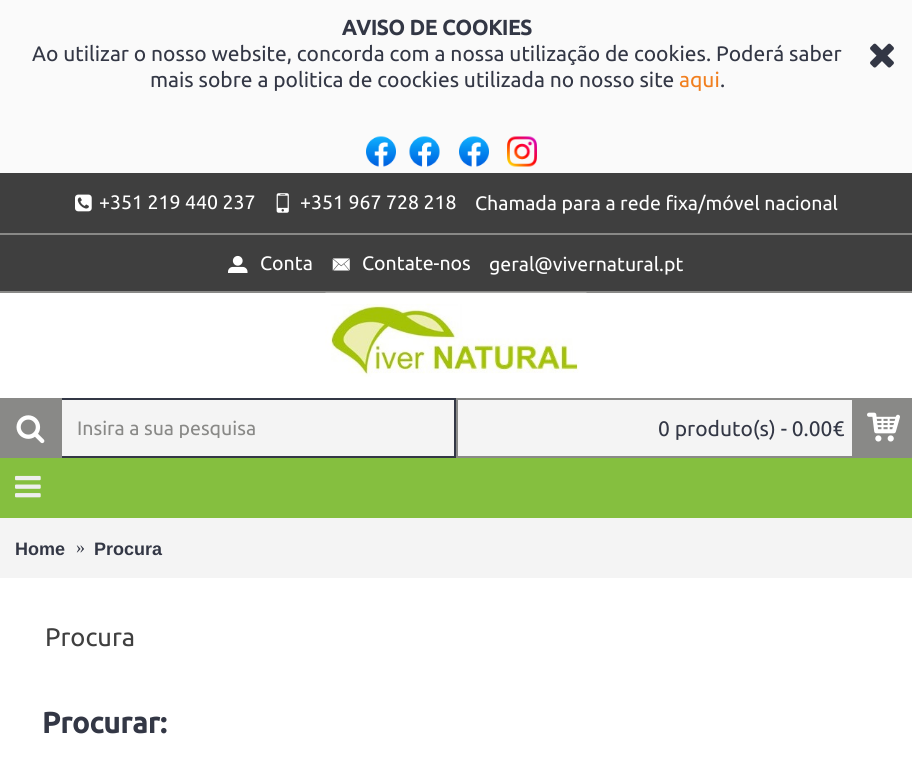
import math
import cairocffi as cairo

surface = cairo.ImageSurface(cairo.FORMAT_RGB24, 912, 764)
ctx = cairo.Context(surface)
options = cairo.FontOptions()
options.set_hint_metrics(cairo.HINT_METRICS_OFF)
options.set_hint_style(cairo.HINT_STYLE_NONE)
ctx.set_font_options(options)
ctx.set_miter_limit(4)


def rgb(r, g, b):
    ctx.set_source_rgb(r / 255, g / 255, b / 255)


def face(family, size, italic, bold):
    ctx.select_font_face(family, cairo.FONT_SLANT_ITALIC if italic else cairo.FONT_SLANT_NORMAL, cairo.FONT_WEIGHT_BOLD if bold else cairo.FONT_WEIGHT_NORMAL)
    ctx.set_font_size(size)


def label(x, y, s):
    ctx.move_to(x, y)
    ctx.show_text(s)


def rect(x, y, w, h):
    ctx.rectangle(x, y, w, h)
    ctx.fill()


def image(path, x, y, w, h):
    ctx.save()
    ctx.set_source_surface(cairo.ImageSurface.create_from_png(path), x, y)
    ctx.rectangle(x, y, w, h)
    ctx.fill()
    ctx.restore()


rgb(250, 250, 250)
ctx.paint()
face('Ubuntu', 21, 0, 1)
rgb(51, 55, 69)
label(342, 35, 'AVISO DE COOKIES')
face('Ubuntu', 21, 0, 0)
label(32, 61, 'Ao utilizar o nosso website, concorda com a nossa utilização de cookies. Poderá saber')
label(150, 87, 'mais sobre a politica de coockies utilizada no nosso site')
rgb(241, 127, 31)
label(679, 87, 'aqui')
rgb(51, 55, 69)
label(720, 87, '.')
image('image0.png', 870, 43, 24, 25)
image('image1.png', 366, 136, 30, 31)
image('image2.png', 409, 136, 31, 31)
image('image1.png', 459, 136, 30, 31)
image('image3.png', 507, 136, 30, 31)
rgb(255, 255, 255)
rect(0, 293, 912, 105)
rgb(63, 63, 63)
rect(0, 173, 912, 60)
image('image4.png', 75, 194, 17, 18)
face('Ubuntu', 19.5, 0, 0)
rgb(255, 255, 255)
label(99, 209, '+351 219 440 237')
image('image5.png', 276, 193, 13, 20)
label(300, 209, '+351 967 728 218')
label(475, 210, 'Chamada para a rede fixa/móvel nacional')
rgb(63, 63, 63)
rect(0, 235, 912, 56)
rgb(137, 137, 135)
rect(0, 233, 912, 2)
rect(0, 291, 912, 2)
image('image6.png', 228, 255, 20, 18)
rgb(255, 255, 255)
label(260, 270, 'Conta')
image('image7.png', 332, 258, 18, 13)
label(362, 270, 'Contate-nos')
label(489, 271, 'geral@vivernatural.pt')
image('image8.png', 325, 292, 262, 85)
rgb(244, 244, 244)
rect(62, 400, 392, 56)
ctx.rectangle(1, 399, 454, 58)
rgb(51, 55, 69)
ctx.stroke()
rgb(137, 137, 135)
rect(0, 398, 62, 60)
image('image9.png', 16, 415, 29, 29)
ctx.save()
ctx.rectangle(77, 417, 378, 21)
ctx.clip()
label(77, 435, 'Insira a sua pesquisa')
ctx.restore()
rgb(244, 244, 244)
rect(458, 400, 394, 56)
rgb(137, 137, 135)
rect(456, 398, 456, 2)
rect(456, 456, 456, 2)
rect(456, 398, 2, 60)
face('Ubuntu', 21, 0, 0)
rgb(51, 55, 69)
label(658, 436, '0 produto(s) - 0.00€')
rgb(137, 137, 135)
rect(852, 400, 60, 56)
image('image10.png', 867, 412, 33, 30)
rgb(133, 191, 63)
rect(0, 458, 912, 60)
image('image11.png', 15, 475, 26, 23)
rgb(255, 255, 255)
rect(0, 578, 912, 186)
rgb(244, 244, 244)
rect(0, 518, 912, 60)
face('Liberation Sans', 18, 0, 1)
rgb(51, 55, 69)
label(15, 555, 'Home')
face('Liberation Serif', 18, 0, 0)
label(76, 553, '»')
face('Liberation Sans', 18, 0, 1)
label(94, 555, 'Procura')
face('Ubuntu', 25.5, 0, 0)
rgb(63, 63, 63)
label(45, 646, 'Procura')
face('Ubuntu', 29.25, 0, 1)
rgb(51, 55, 69)
label(42, 733, 'Procurar:')
surface.write_to_png('render.png')
